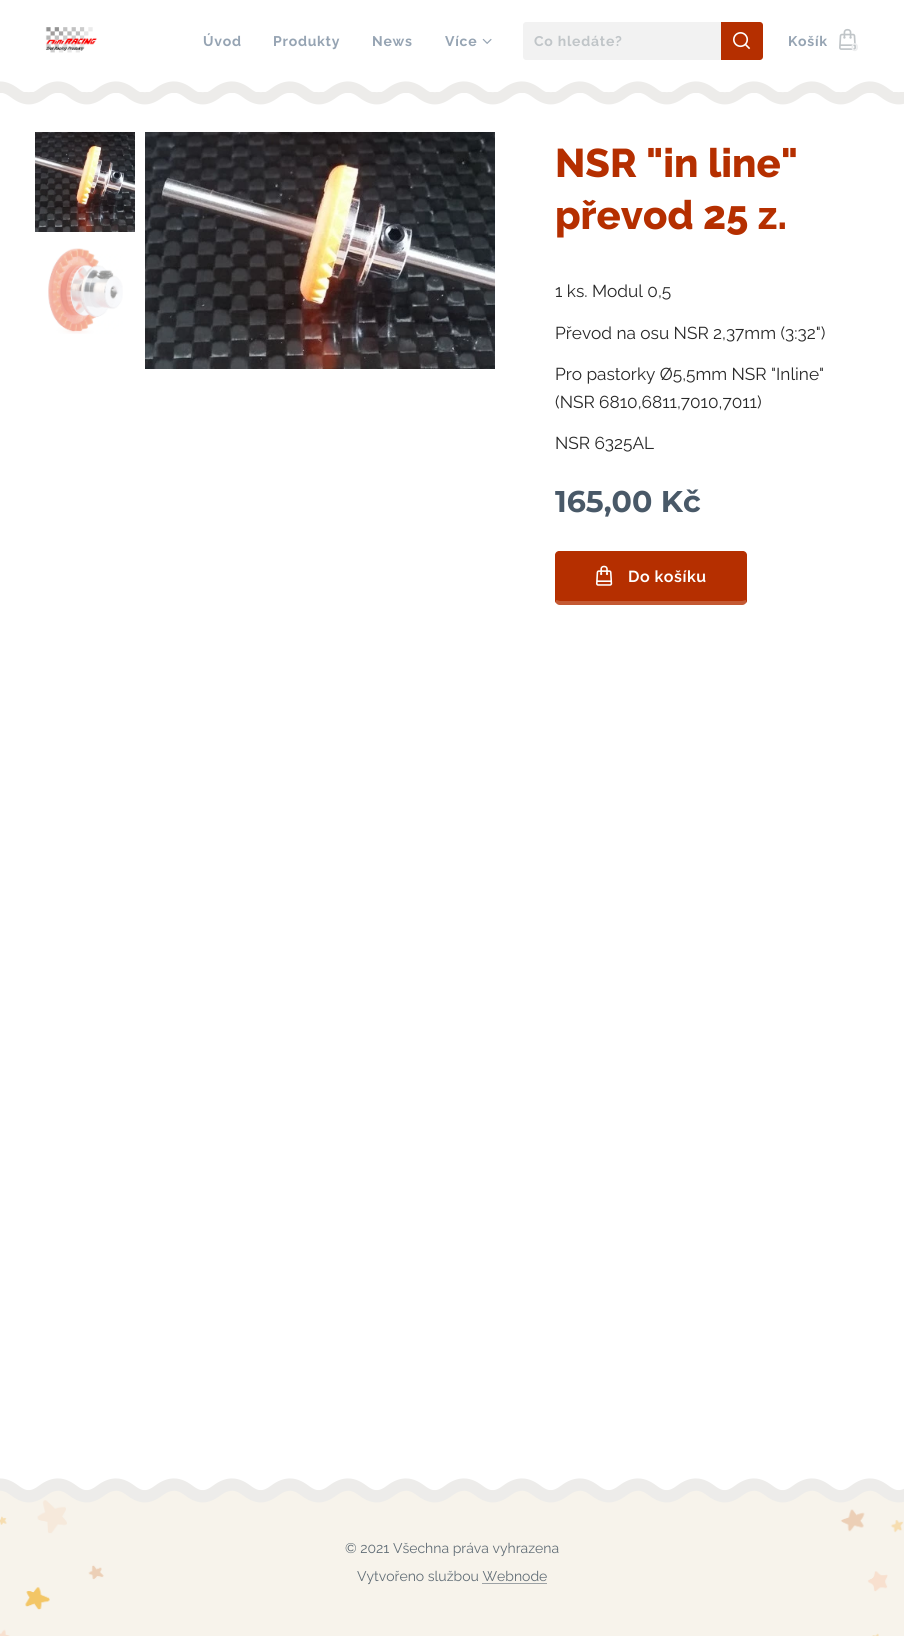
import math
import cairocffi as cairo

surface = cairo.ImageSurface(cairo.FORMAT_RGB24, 904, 1636)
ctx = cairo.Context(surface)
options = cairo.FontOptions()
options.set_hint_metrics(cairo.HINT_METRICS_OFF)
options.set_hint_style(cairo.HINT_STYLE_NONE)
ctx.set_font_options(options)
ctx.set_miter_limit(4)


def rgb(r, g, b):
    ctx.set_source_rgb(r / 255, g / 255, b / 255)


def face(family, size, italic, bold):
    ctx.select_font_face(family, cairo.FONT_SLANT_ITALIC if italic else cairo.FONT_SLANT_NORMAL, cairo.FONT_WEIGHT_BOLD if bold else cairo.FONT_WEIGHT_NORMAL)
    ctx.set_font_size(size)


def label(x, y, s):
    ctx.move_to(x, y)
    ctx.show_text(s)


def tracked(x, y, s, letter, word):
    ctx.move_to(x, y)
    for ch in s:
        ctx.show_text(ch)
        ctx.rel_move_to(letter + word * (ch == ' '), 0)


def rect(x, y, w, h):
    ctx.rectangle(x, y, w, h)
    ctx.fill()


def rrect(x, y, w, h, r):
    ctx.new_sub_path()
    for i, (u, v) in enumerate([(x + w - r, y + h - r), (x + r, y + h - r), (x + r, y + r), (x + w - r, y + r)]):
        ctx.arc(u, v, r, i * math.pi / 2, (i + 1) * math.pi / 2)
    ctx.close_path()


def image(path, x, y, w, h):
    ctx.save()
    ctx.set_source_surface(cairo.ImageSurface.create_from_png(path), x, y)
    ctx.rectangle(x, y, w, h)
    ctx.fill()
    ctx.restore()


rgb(255, 255, 255)
ctx.paint()
image('image0.png', 45, 27, 52, 26)
face('Raleway', 14, 0, 1)
rgb(150, 164, 179)
tracked(203, 46, 'Úvod', 0.75, 0)
tracked(273, 46, 'Produkty', 0.75, 0)
tracked(372, 46, 'News', 0.75, 0)
tracked(445, 46, 'Více', 0.75, 0)
image('image1.png', 482, 38, 10, 6)
rgb(242, 242, 242)
ctx.new_path()
ctx.move_to(526, 22)
ctx.line_to(721, 22)
ctx.line_to(721, 60)
ctx.line_to(526, 60)
ctx.curve_to(524.5, 60, 523, 58.5, 523, 57)
ctx.line_to(523, 25)
ctx.curve_to(523, 23.5, 524.5, 22, 526, 22)
ctx.close_path()
ctx.fill()
rgb(192, 197, 200)
tracked(534, 46, 'Co hledáte?', 0.75, 0)
rgb(181, 47, 0)
ctx.new_path()
ctx.move_to(721, 22)
ctx.line_to(760, 22)
ctx.curve_to(761.5, 22, 763, 23.5, 763, 25)
ctx.line_to(763, 57)
ctx.curve_to(763, 58.5, 761.5, 60, 760, 60)
ctx.line_to(721, 60)
ctx.close_path()
ctx.fill()
image('image2.png', 733, 32, 18, 18)
rgb(150, 164, 179)
tracked(788, 46, 'Košík', 0.75, 0)
image('image3.png', 839, 28, 17, 22)
face('Montserrat', 11, 0, 1)
rgb(238, 239, 240)
label(851, 51, '0')
image('image5.png', 2, 92, 902, 13)
image('image4.png', 0, 81, 893, 12)
image('image6.png', 35, 132, 100, 100)
image('image7.png', 48, 248, 75, 86)
image('image8.png', 145, 132, 350, 237)
face('Raleway ExtraBold', 40, 0, 0)
rgb(181, 47, 0)
label(555, 177, 'NSR "in line"')
label(555, 229, 'převod 25 z.')
face('Raleway', 17.25, 0, 0)
rgb(40, 40, 40)
label(555, 297, '1 ks. Modul 0,5')
label(555, 339, 'Převod na osu NSR 2,37mm (3:32")')
label(555, 380, 'Pro pastorky Ø5,5mm NSR "Inline"')
label(555, 408, '(NSR 6810,6811,7010,7011)')
label(555, 449, 'NSR 6325AL')
face('Montserrat', 30, 0, 1)
rgb(73, 89, 104)
label(555, 512, '165,00 Kč')
rgb(181, 47, 0)
rrect(555, 551, 192, 54, 5)
ctx.fill()
ctx.new_path()
ctx.move_to(560, 551)
ctx.curve_to(558, 551, 557, 552, 556, 552)
ctx.line_to(557, 553)
ctx.curve_to(558, 552, 559, 552, 560, 552)
ctx.line_to(742, 552)
ctx.curve_to(743, 552, 744, 552, 745, 553)
ctx.line_to(746, 552)
ctx.curve_to(745, 552, 744, 551, 742, 551)
ctx.close_path()
ctx.fill()
ctx.new_path()
ctx.move_to(747, 600)
ctx.line_to(747, 556)
ctx.curve_to(747, 554, 746, 553, 746, 552)
ctx.line_to(745, 553)
ctx.line_to(746, 556)
ctx.line_to(746, 600)
ctx.line_to(746, 603)
ctx.close_path()
ctx.fill()
ctx.set_source_rgba(1, 1, 1, 0.2)
ctx.new_path()
ctx.move_to(560, 605)
ctx.line_to(742, 605)
ctx.curve_to(744, 605, 746, 604, 746, 603)
ctx.line_to(746, 600)
ctx.line_to(742, 601)
ctx.line_to(560, 601)
ctx.line_to(556, 600)
ctx.line_to(556, 603)
ctx.curve_to(556, 604, 558, 605, 560, 605)
ctx.close_path()
ctx.fill()
rgb(181, 47, 0)
ctx.new_path()
ctx.move_to(555, 556)
ctx.line_to(555, 600)
ctx.line_to(556, 603)
ctx.line_to(556, 600)
ctx.line_to(556, 556)
ctx.line_to(557, 553)
ctx.line_to(556, 552)
ctx.curve_to(556, 553, 555, 554, 555, 556)
ctx.close_path()
ctx.fill()
image('image9.png', 596, 565, 17, 21)
face('Raleway SemiBold', 16, 0, 0)
rgb(255, 255, 255)
tracked(628, 582, 'Do košíku', 0.5, 0)
image('image10.png', 0, 1478, 904, 12)
image('image11.png', 0, 1490, 904, 146)
image('image12.png', 0, 1490, 904, 13)
face('Raleway', 14, 0, 0)
rgb(97, 109, 118)
label(345, 1553, '© 2021 Všechna práva vyhrazena')
label(357, 1581, 'Vytvořeno službou Webnode')
rgb(157, 162, 165)
rect(482, 1583, 65, 1)
surface.write_to_png('render.png')
